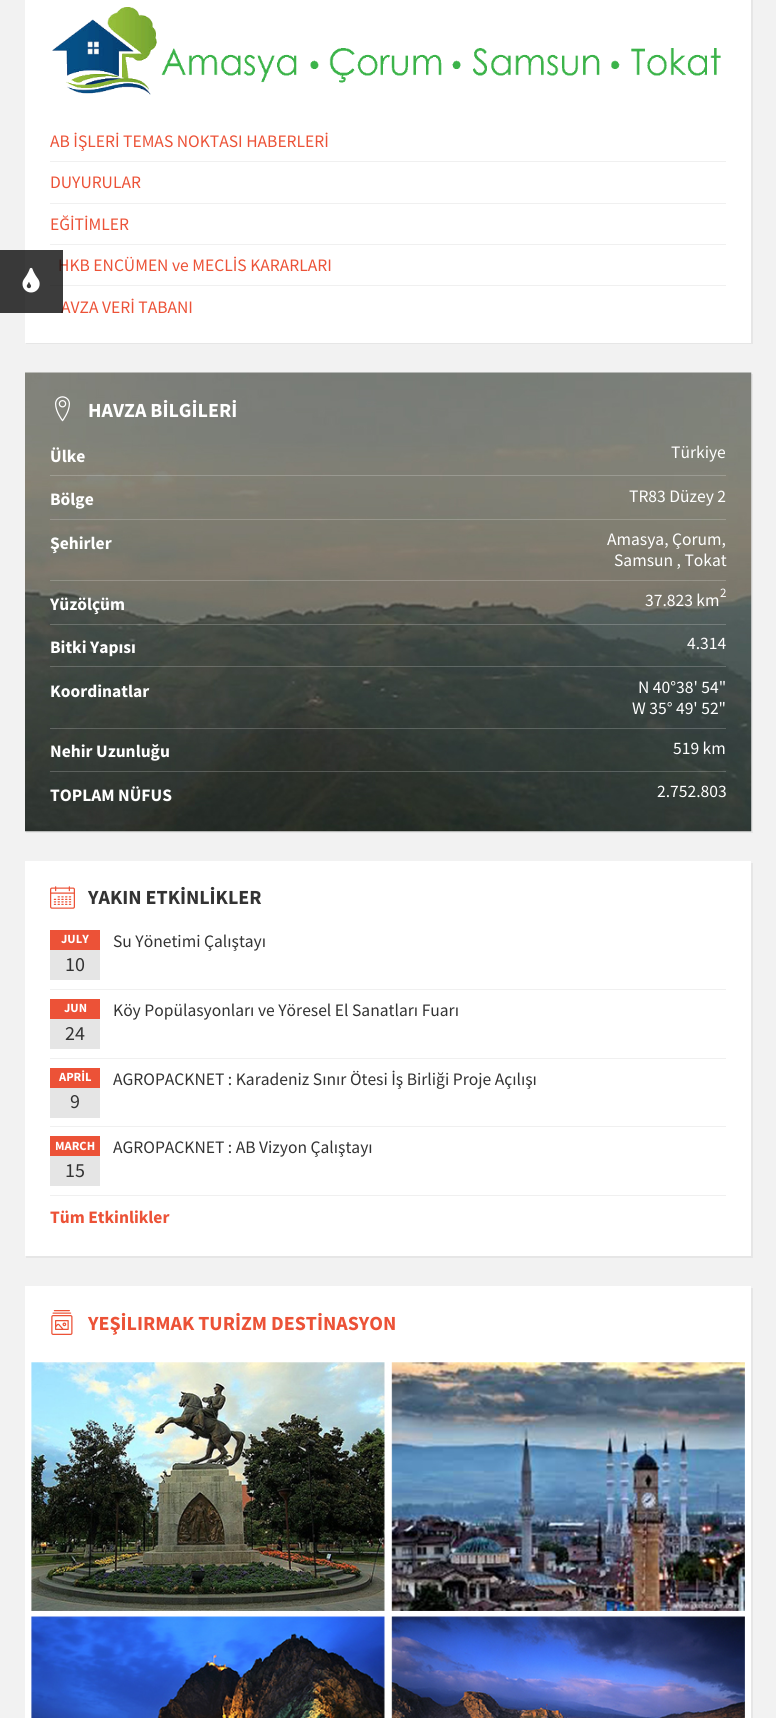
import math
import cairocffi as cairo

surface = cairo.ImageSurface(cairo.FORMAT_RGB24, 776, 1718)
ctx = cairo.Context(surface)
options = cairo.FontOptions()
options.set_hint_metrics(cairo.HINT_METRICS_OFF)
options.set_hint_style(cairo.HINT_STYLE_NONE)
ctx.set_font_options(options)
ctx.set_miter_limit(4)


def rgb(r, g, b):
    ctx.set_source_rgb(r / 255, g / 255, b / 255)


def face(family, size, italic, bold):
    ctx.select_font_face(family, cairo.FONT_SLANT_ITALIC if italic else cairo.FONT_SLANT_NORMAL, cairo.FONT_WEIGHT_BOLD if bold else cairo.FONT_WEIGHT_NORMAL)
    ctx.set_font_size(size)


def label(x, y, s):
    ctx.move_to(x, y)
    ctx.show_text(s)


def rect(x, y, w, h):
    ctx.rectangle(x, y, w, h)
    ctx.fill()


def image(path, x, y, w, h):
    ctx.save()
    ctx.set_source_surface(cairo.ImageSurface.create_from_png(path), x, y)
    ctx.rectangle(x, y, w, h)
    ctx.fill()
    ctx.restore()


rgb(242, 242, 242)
ctx.paint()
rgb(230, 230, 230)
ctx.new_path()
ctx.move_to(26, 342)
ctx.line_to(26, 344)
ctx.line_to(753, 344)
ctx.line_to(753, -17)
ctx.line_to(751, -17)
ctx.line_to(751, 342)
ctx.close_path()
ctx.fill()
rgb(255, 255, 255)
rect(25, 0, 726, 343)
face('Source Sans Pro', 17.5, 0, 0)
rgb(236, 82, 55)
label(58, 271, 'HKB ENCÜMEN ve MECLİS KARARLARI')
rgb(240, 240, 240)
rect(50, 285, 676, 1)
rgb(236, 82, 55)
label(61, 313, 'AVZA VERİ TABANI')
ctx.set_source_rgba(0.047, 0.047, 0.047, 0.8)
rect(0, 250, 63, 63)
image('image0.png', 22, 267, 18, 26)
image('image1.png', 52, 7, 669, 88)
rgb(236, 82, 55)
label(50, 147, 'AB İŞLERİ TEMAS NOKTASI HABERLERİ')
rgb(240, 240, 240)
rect(50, 161, 676, 1)
rgb(236, 82, 55)
label(50, 188, 'DUYURULAR')
rgb(240, 240, 240)
rect(50, 203, 676, 1)
rgb(236, 82, 55)
label(50, 230, 'EĞİTİMLER')
rgb(240, 240, 240)
rect(50, 244, 676, 1)
rgb(230, 230, 230)
ctx.new_path()
ctx.move_to(26, 831)
ctx.line_to(26, 833)
ctx.line_to(753, 833)
ctx.line_to(753, 374)
ctx.line_to(751, 374)
ctx.line_to(751, 831)
ctx.close_path()
ctx.fill()
image('image2.png', 25, 372, 727, 460)
image('image3.png', 55, 396, 15, 26)
face('Source Sans Pro', 20, 0, 1)
rgb(255, 255, 255)
label(88, 417, 'HAVZA BİLGİLERİ')
face('Source Sans Pro', 17.5, 0, 1)
label(50, 462, 'Ülke')
face('Source Sans Pro', 17.5, 0, 0)
label(671, 458, 'Türkiye')
ctx.set_source_rgba(1, 1, 1, 0.2)
rect(50, 475, 676, 1)
face('Source Sans Pro', 17.5, 0, 1)
rgb(255, 255, 255)
label(50, 505, 'Bölge')
face('Source Sans Pro', 17.5, 0, 0)
label(629, 502, 'TR83 Düzey 2')
ctx.set_source_rgba(1, 1, 1, 0.2)
rect(50, 519, 676, 1)
face('Source Sans Pro', 17.5, 0, 1)
rgb(255, 255, 255)
label(50, 549, 'Şehirler')
face('Source Sans Pro', 17.5, 0, 0)
label(607, 545, 'Amasya, Çorum,')
label(614, 566, 'Samsun , Tokat')
ctx.set_source_rgba(1, 1, 1, 0.2)
rect(50, 580, 676, 1)
face('Source Sans Pro', 17.5, 0, 1)
rgb(255, 255, 255)
label(50, 610, 'Yüzölçüm')
face('Source Sans Pro', 17.5, 0, 0)
label(645, 606, '37.823 km')
face('Source Sans Pro', 13, 0, 0)
label(720, 597, '2')
ctx.set_source_rgba(1, 1, 1, 0.2)
rect(50, 624, 676, 1)
face('Source Sans Pro', 17.5, 0, 1)
rgb(255, 255, 255)
label(50, 653, 'Bitki Yapısı')
face('Source Sans Pro', 17.5, 0, 0)
label(687, 649, '4.314')
ctx.set_source_rgba(1, 1, 1, 0.2)
rect(50, 666, 676, 1)
face('Source Sans Pro', 17.5, 0, 1)
rgb(255, 255, 255)
label(50, 697, 'Koordinatlar')
face('Source Sans Pro', 17.5, 0, 0)
label(638, 693, 'N 40°38\' 54"')
label(632, 714, 'W 35° 49\' 52"')
ctx.set_source_rgba(1, 1, 1, 0.2)
rect(50, 728, 676, 1)
face('Source Sans Pro', 17.5, 0, 1)
rgb(255, 255, 255)
label(50, 757, 'Nehir Uzunluğu')
face('Source Sans Pro', 17.5, 0, 0)
label(673, 754, '519 km')
ctx.set_source_rgba(1, 1, 1, 0.2)
rect(50, 771, 676, 1)
face('Source Sans Pro', 17.5, 0, 1)
rgb(255, 255, 255)
label(50, 801, 'TOPLAM NÜFUS')
face('Source Sans Pro', 17.5, 0, 0)
label(657, 797, '2.752.803')
rgb(230, 230, 230)
ctx.new_path()
ctx.move_to(26, 1256)
ctx.line_to(26, 1258)
ctx.line_to(753, 1258)
ctx.line_to(753, 863)
ctx.line_to(751, 863)
ctx.line_to(751, 1256)
ctx.close_path()
ctx.fill()
rgb(255, 255, 255)
rect(25, 861, 726, 395)
image('image4.png', 50, 886, 25, 23)
face('Source Sans Pro', 20, 0, 1)
rgb(51, 51, 51)
label(88, 904, 'YAKIN ETKİNLİKLER')
rgb(236, 82, 55)
rect(50, 930, 50, 20)
face('Source Sans Pro', 12.5, 0, 1)
rgb(255, 255, 255)
label(61, 943, 'JULY')
rgb(229, 229, 229)
rect(50, 950, 50, 30)
face('Source Sans Pro', 20, 0, 0)
rgb(51, 51, 51)
label(65, 971, '10')
face('Source Sans Pro', 17.5, 0, 0)
label(113, 947, 'Su Yönetimi Çalıştayı')
rgb(240, 240, 240)
rect(50, 989, 676, 1)
rgb(236, 82, 55)
rect(50, 999, 50, 20)
face('Source Sans Pro', 12.5, 0, 1)
rgb(255, 255, 255)
label(64, 1012, 'JUN')
rgb(229, 229, 229)
rect(50, 1019, 50, 30)
face('Source Sans Pro', 20, 0, 0)
rgb(51, 51, 51)
label(65, 1040, '24')
face('Source Sans Pro', 17.5, 0, 0)
label(113, 1016, 'Köy Popülasyonları ve Yöresel El Sanatları Fuarı')
rgb(240, 240, 240)
rect(50, 1058, 676, 1)
rgb(236, 82, 55)
rect(50, 1068, 50, 20)
face('Source Sans Pro', 12.5, 0, 1)
rgb(255, 255, 255)
label(59, 1081, 'APRİL')
rgb(229, 229, 229)
rect(50, 1088, 50, 30)
face('Source Sans Pro', 20, 0, 0)
rgb(51, 51, 51)
label(70, 1108, '9')
face('Source Sans Pro', 17.5, 0, 0)
label(113, 1085, 'AGROPACKNET : Karadeniz Sınır Ötesi İş Birliği Proje Açılışı')
rgb(240, 240, 240)
rect(50, 1126, 676, 1)
rgb(236, 82, 55)
rect(50, 1136, 50, 20)
face('Source Sans Pro', 12.5, 0, 1)
rgb(255, 255, 255)
label(55, 1150, 'MARCH')
rgb(229, 229, 229)
rect(50, 1156, 50, 30)
face('Source Sans Pro', 20, 0, 0)
rgb(51, 51, 51)
label(65, 1177, '15')
face('Source Sans Pro', 17.5, 0, 0)
label(113, 1153, 'AGROPACKNET : AB Vizyon Çalıştayı')
rgb(240, 240, 240)
rect(50, 1195, 676, 1)
face('Source Sans Pro', 17.5, 0, 1)
rgb(236, 82, 55)
label(50, 1223, 'Tüm Etkinlikler')
rgb(230, 230, 230)
ctx.new_path()
ctx.move_to(26, 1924)
ctx.line_to(26, 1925)
ctx.line_to(753, 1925)
ctx.line_to(753, 1288)
ctx.line_to(751, 1288)
ctx.line_to(751, 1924)
ctx.close_path()
ctx.fill()
rgb(255, 255, 255)
rect(25, 1286, 726, 432)
image('image5.png', 51, 1310, 22, 25)
face('Source Sans Pro', 20, 0, 1)
rgb(236, 82, 55)
label(88, 1330, 'YEŞİLIRMAK TURİZM DESTİNASYON')
image('image6.png', 31, 1362, 714, 356)
surface.write_to_png('render.png')
